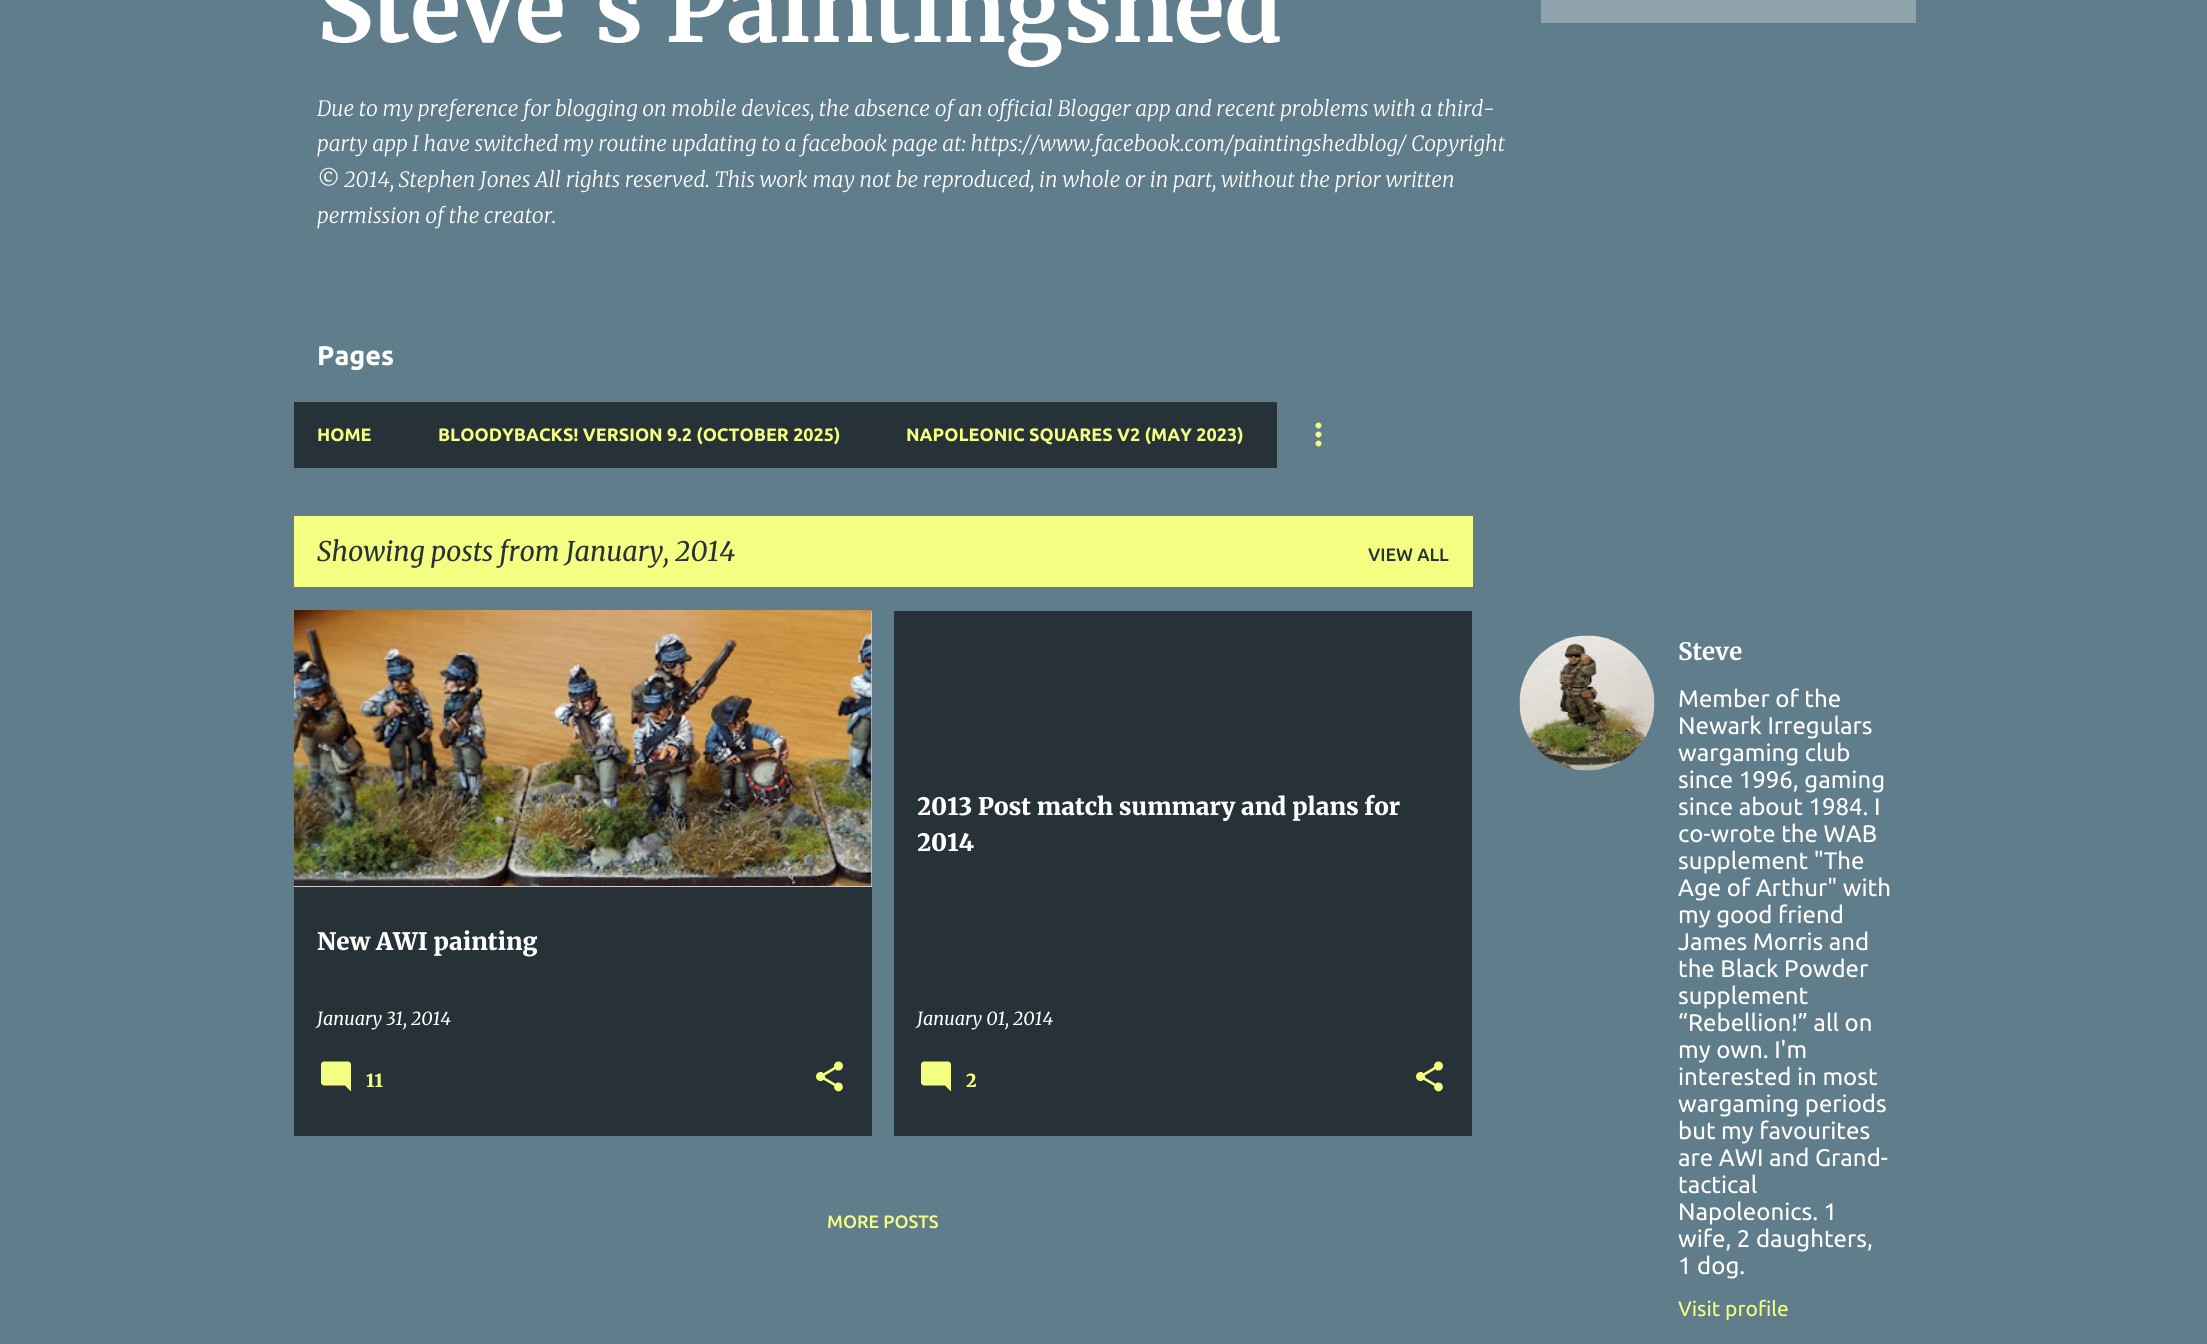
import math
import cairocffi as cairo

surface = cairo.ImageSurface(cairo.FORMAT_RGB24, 2207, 1344)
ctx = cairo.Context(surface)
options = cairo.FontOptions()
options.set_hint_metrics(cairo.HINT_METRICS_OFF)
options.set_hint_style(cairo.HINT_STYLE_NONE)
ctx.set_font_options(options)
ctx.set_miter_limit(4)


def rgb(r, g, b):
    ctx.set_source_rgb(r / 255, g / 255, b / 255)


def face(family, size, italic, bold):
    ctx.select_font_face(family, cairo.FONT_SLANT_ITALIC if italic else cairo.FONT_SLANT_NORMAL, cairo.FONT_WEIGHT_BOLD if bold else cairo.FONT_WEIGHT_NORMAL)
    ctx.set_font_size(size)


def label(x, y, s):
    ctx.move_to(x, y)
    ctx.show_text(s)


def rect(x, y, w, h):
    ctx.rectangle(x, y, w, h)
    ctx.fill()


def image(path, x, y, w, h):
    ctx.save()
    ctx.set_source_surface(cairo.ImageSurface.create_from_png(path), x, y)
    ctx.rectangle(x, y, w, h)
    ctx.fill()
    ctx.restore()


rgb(96, 125, 139)
ctx.paint()
face('Merriweather', 93, 0, 1)
rgb(255, 255, 255)
label(317, 42, 'Steve\'s Paintingshed')
face('Merriweather Light', 21, 1, 0)
label(317, 116, 'Due to my preference for blogging on mobile devices, the absence of an official Blogger app and recent problems with a third-')
label(317, 151, 'party app I have switched my routine updating to a facebook page at: https://www.facebook.com/paintingshedblog/ Copyright')
label(317, 187, '© 2014, Stephen Jones All rights reserved. This work may not be reproduced, in whole or in part, without the prior written')
label(317, 223, 'permission of the creator.')
rgb(144, 164, 174)
rect(1541, 0, 375, 23)
face('Ubuntu', 27, 0, 1)
rgb(255, 255, 255)
label(317, 365, 'Pages')
rgb(38, 50, 56)
rect(294, 402, 983, 66)
face('Ubuntu', 18, 0, 1)
rgb(244, 255, 129)
label(317, 441, 'HOME')
label(438, 441, 'BLOODYBACKS! VERSION 9.2 (OCTOBER 2025)')
label(906, 441, 'NAPOLEONIC SQUARES V2 (MAY 2023)')
image('image0.png', 1315, 422, 7, 25)
rect(294, 516, 1179, 71)
face('Merriweather', 27, 1, 0)
rgb(38, 50, 56)
label(317, 561, 'Showing posts from January, 2014')
face('Ubuntu Medium', 18, 0, 0)
label(1368, 561, 'VIEW ALL')
rect(294, 887, 578, 249)
rgb(217, 205, 199)
rect(294, 611, 578, 276)
image('image1.png', 294, 610, 578, 276)
face('Merriweather Black', 24, 0, 0)
rgb(255, 255, 255)
label(317, 950, 'New AWI painting')
face('Merriweather', 18, 1, 0)
label(317, 1025, 'January 31, 2014')
image('image2.png', 321, 1061, 30, 31)
face('Merriweather Black', 18, 0, 0)
rgb(244, 255, 129)
label(366, 1087, '11')
image('image3.png', 816, 1061, 27, 31)
rgb(38, 50, 56)
rect(894, 611, 578, 525)
ctx.save()
ctx.rectangle(918, 788, 530, 72)
ctx.clip()
face('Merriweather Black', 24, 0, 0)
rgb(255, 255, 255)
label(917, 815, '2013 Post match summary and plans for')
label(917, 851, '2014')
ctx.restore()
face('Merriweather', 18, 1, 0)
rgb(255, 255, 255)
label(917, 1025, 'January 01, 2014')
image('image2.png', 921, 1061, 30, 31)
face('Merriweather Black', 18, 0, 0)
rgb(244, 255, 129)
label(966, 1087, '2')
image('image3.png', 1416, 1061, 27, 31)
face('Ubuntu Medium', 18, 0, 0)
label(827, 1228, 'MORE POSTS')
image('image4.png', 1519, 635, 136, 136)
face('Merriweather', 24, 0, 1)
rgb(255, 255, 255)
label(1678, 660, 'Steve')
face('Ubuntu', 24, 0, 0)
label(1678, 707, 'Member of the')
label(1678, 734, 'Newark Irregulars')
label(1678, 761, 'wargaming club')
label(1678, 788, 'since 1996, gaming')
label(1678, 815, 'since about 1984. I')
label(1678, 842, 'co-wrote the WAB')
label(1678, 869, 'supplement "The')
label(1678, 896, 'Age of Arthur" with')
label(1678, 923, 'my good friend')
label(1678, 950, 'James Morris and')
label(1678, 977, 'the Black Powder')
label(1678, 1004, 'supplement')
label(1678, 1031, '“Rebellion!” all on')
label(1678, 1058, 'my own. I\'m')
label(1678, 1085, 'interested in most')
label(1678, 1112, 'wargaming periods')
label(1678, 1139, 'but my favourites')
label(1678, 1166, 'are AWI and Grand-')
label(1678, 1193, 'tactical')
label(1678, 1220, 'Napoleonics. 1')
label(1678, 1247, 'wife, 2 daughters,')
label(1678, 1274, '1 dog.')
face('Ubuntu', 21, 0, 0)
rgb(244, 255, 129)
label(1678, 1316, 'Visit profile')
surface.write_to_png('render.png')
